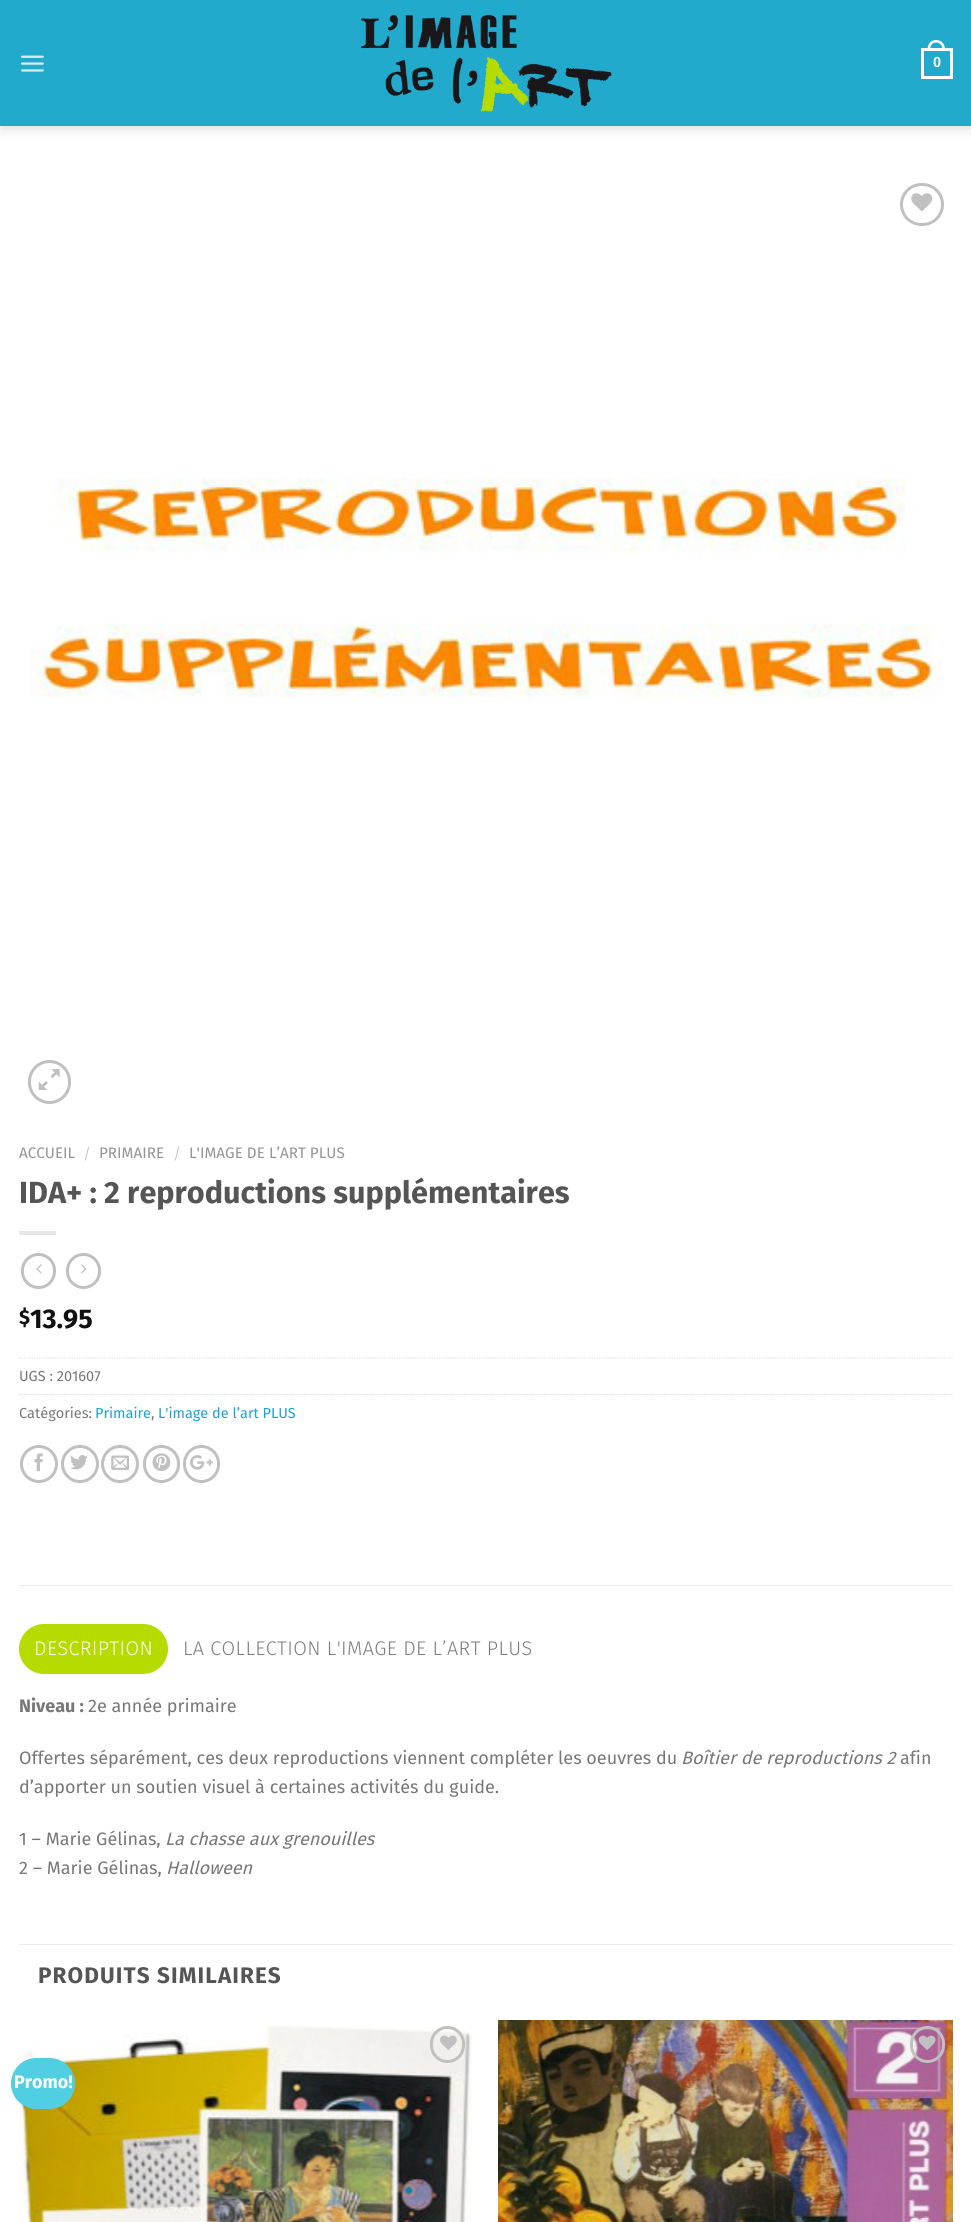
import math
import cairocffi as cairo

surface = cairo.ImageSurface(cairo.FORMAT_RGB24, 971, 2222)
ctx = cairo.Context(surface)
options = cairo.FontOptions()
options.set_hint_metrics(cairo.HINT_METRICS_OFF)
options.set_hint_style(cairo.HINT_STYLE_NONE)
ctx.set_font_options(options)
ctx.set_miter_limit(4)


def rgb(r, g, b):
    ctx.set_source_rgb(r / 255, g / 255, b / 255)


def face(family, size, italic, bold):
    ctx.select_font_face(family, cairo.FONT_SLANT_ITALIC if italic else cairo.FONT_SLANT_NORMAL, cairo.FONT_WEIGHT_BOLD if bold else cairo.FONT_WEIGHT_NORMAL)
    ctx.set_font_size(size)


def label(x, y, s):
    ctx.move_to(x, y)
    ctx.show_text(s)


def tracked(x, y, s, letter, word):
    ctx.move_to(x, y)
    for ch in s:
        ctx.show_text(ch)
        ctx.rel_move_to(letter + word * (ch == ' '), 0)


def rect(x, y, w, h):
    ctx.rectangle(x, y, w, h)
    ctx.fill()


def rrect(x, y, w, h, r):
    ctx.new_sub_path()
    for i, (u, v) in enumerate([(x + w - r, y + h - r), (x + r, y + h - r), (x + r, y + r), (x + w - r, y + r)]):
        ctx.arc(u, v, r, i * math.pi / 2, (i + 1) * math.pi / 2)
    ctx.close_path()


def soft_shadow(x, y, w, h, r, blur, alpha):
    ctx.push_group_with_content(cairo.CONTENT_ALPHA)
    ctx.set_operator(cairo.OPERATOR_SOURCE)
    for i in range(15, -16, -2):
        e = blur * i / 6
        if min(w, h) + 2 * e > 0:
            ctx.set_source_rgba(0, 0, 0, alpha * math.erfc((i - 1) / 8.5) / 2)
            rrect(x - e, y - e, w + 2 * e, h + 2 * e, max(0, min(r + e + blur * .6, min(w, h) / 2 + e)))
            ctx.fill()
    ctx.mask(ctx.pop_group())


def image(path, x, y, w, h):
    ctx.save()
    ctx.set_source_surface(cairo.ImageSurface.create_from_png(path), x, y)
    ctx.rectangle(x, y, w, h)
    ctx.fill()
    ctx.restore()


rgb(255, 255, 255)
ctx.paint()
rgb(0, 0, 0)
soft_shadow(1, 1, 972, 127, 0, 6, 0.15)
rgb(34, 170, 204)
rect(0, 0, 971, 126)
image('image0.png', 21, 55, 23, 17)
image('image1.png', 361, 15, 251, 97)
ctx.rectangle(922.5, 49.5, 29, 28)
rgb(255, 255, 255)
ctx.set_line_width(3)
ctx.stroke()
ctx.set_fill_rule(cairo.FILL_RULE_EVEN_ODD)
ctx.new_path()
ctx.move_to(936, 40)
ctx.curve_to(942, 40, 945, 44.5, 945, 50)
ctx.line_to(927.5, 50)
ctx.curve_to(927.5, 44.5, 930.5, 40, 936, 40)
ctx.close_path()
ctx.move_to(936, 42.5)
ctx.curve_to(940.5, 42.5, 942.5, 46, 942.5, 50)
ctx.line_to(930, 50)
ctx.curve_to(930, 46, 932, 42.5, 936, 42.5)
ctx.close_path()
ctx.fill()
face('Liberation Sans', 14.5, 0, 1)
label(933, 67, '0')
rrect(901.5, 184.5, 41, 40, 20)
rgb(192, 192, 192)
ctx.stroke()
image('image2.png', 911, 193, 22, 19)
image('image3.png', 30, 477, 912, 221)
rrect(29.5, 1061.5, 40, 41, 20)
ctx.stroke()
image('image4.png', 38, 1069, 22, 22)
face('Fira Sans', 15.25, 0, 0)
rgb(148, 148, 148)
label(19, 1158, 'ACCUEIL')
face('Fira Sans Light', 15.25, 0, 0)
rgb(178, 178, 178)
label(83, 1159, '/')
face('Fira Sans', 15.25, 0, 0)
rgb(148, 148, 148)
label(99, 1158, 'PRIMAIRE')
face('Fira Sans Light', 15.25, 0, 0)
rgb(178, 178, 178)
label(173, 1159, '/')
face('Fira Sans', 15.25, 0, 0)
rgb(148, 148, 148)
label(189, 1158, 'L\'IMAGE DE L’ART PLUS')
face('Fira Sans', 30.6, 0, 1)
rgb(85, 85, 85)
label(19, 1203, 'IDA+ : 2 reproductions supplémentaires')
rgb(230, 230, 230)
rect(19, 1231, 37, 4)
rrect(22.5, 1254.5, 32, 33, 16)
rgb(192, 192, 192)
ctx.stroke()
image('image5.png', 36, 1264, 6, 10)
rrect(67.5, 1254.5, 32, 33, 16)
ctx.stroke()
image('image6.png', 81, 1264, 6, 10)
face('Fira Sans', 20, 0, 1)
rgb(17, 17, 17)
label(19, 1324, '$')
face('Fira Sans', 27, 0, 1)
label(30, 1328, '13.95')
ctx.new_path()
ctx.move_to(19, 1358)
ctx.line_to(952.5, 1358)
rgb(221, 221, 221)
ctx.set_line_width(1.2)
ctx.set_dash([1.25, 1.25])
ctx.stroke()
face('Fira Sans', 14.5, 0, 0)
rgb(119, 119, 119)
label(19, 1381, 'UGS : 201607')
ctx.new_path()
ctx.move_to(19, 1394.5)
ctx.line_to(952.5, 1394.5)
rgb(221, 221, 221)
ctx.stroke()
rgb(119, 119, 119)
label(19, 1418, 'Catégories:')
rgb(24, 162, 221)
label(95, 1418, 'Primaire')
rgb(119, 119, 119)
label(151, 1418, ',')
rgb(24, 162, 221)
label(158, 1418, 'L\'image de l’art PLUS')
ctx.new_path()
ctx.arc(39, 1464, 17.5, 0, 2 * math.pi)
rgb(192, 192, 192)
ctx.set_line_width(3)
ctx.set_dash([])
ctx.stroke()
image('image7.png', 34, 1453, 9, 19)
ctx.arc(80, 1464, 17.5, 0, 2 * math.pi)
ctx.stroke()
image('image8.png', 70, 1455, 18, 15)
ctx.arc(120, 1464, 17.5, 0, 2 * math.pi)
ctx.stroke()
image('image9.png', 111, 1455, 18, 15)
rrect(144.5, 1446.5, 34, 35, 17)
ctx.stroke()
image('image10.png', 152, 1453, 19, 19)
rrect(184.5, 1446.5, 34, 35, 17)
ctx.stroke()
image('image11.png', 190, 1455, 23, 15)
rgb(236, 236, 236)
rect(19, 1585, 934, 1)
rgb(182, 219, 0)
rrect(19, 1624, 149, 50, 25)
ctx.fill()
face('Fira Sans Light', 19.75, 0, 0)
rgb(255, 255, 255)
tracked(34, 1655, 'DESCRIPTION', 0.4, 0)
rgb(125, 125, 125)
tracked(183, 1655, 'LA COLLECTION L\'IMAGE DE L’ART PLUS', 0.4, 0)
face('Fira Sans', 18, 0, 1)
rgb(119, 119, 119)
label(19, 1712, 'Niveau :')
face('Fira Sans', 18, 0, 0)
label(88, 1712, '2e année primaire')
label(19, 1764, 'Offertes séparément, ces deux reproductions viennent compléter les oeuvres du')
face('Fira Sans', 18, 1, 0)
label(681, 1764, 'Boîtier de reproductions 2')
face('Fira Sans', 18, 0, 0)
label(900, 1764, 'afin')
label(19, 1793, 'd’apporter un soutien visuel à certaines activités du guide.')
label(19, 1845, '1 – Marie Gélinas,')
face('Fira Sans', 18, 1, 0)
label(165, 1845, 'La chasse aux grenouilles')
face('Fira Sans', 18, 0, 0)
label(19, 1874, '2 – Marie Gélinas,')
face('Fira Sans', 18, 1, 0)
label(166, 1874, 'Halloween')
rgb(236, 236, 236)
rect(19, 1944, 934, 1)
face('Fira Sans', 22.5, 0, 1)
rgb(85, 85, 85)
tracked(38, 1983, 'PRODUITS SIMILAIRES', 1.1, 0)
image('image12.png', 19, 2025, 453, 197)
rrect(431.5, 2027.5, 32, 34, 16)
rgb(192, 192, 192)
ctx.stroke()
image('image13.png', 440, 2035, 17, 15)
rgb(81, 207, 226)
rrect(11, 2058, 64, 51, 25.5)
ctx.fill()
face('Fira Sans', 18, 0, 1)
rgb(255, 255, 255)
label(14, 2088, 'Promo!')
image('image14.png', 498, 2020, 455, 202)
rrect(911.5, 2027.5, 32, 34, 16)
rgb(192, 192, 192)
ctx.stroke()
image('image15.png', 918, 2035, 18, 15)
surface.write_to_png('render.png')
